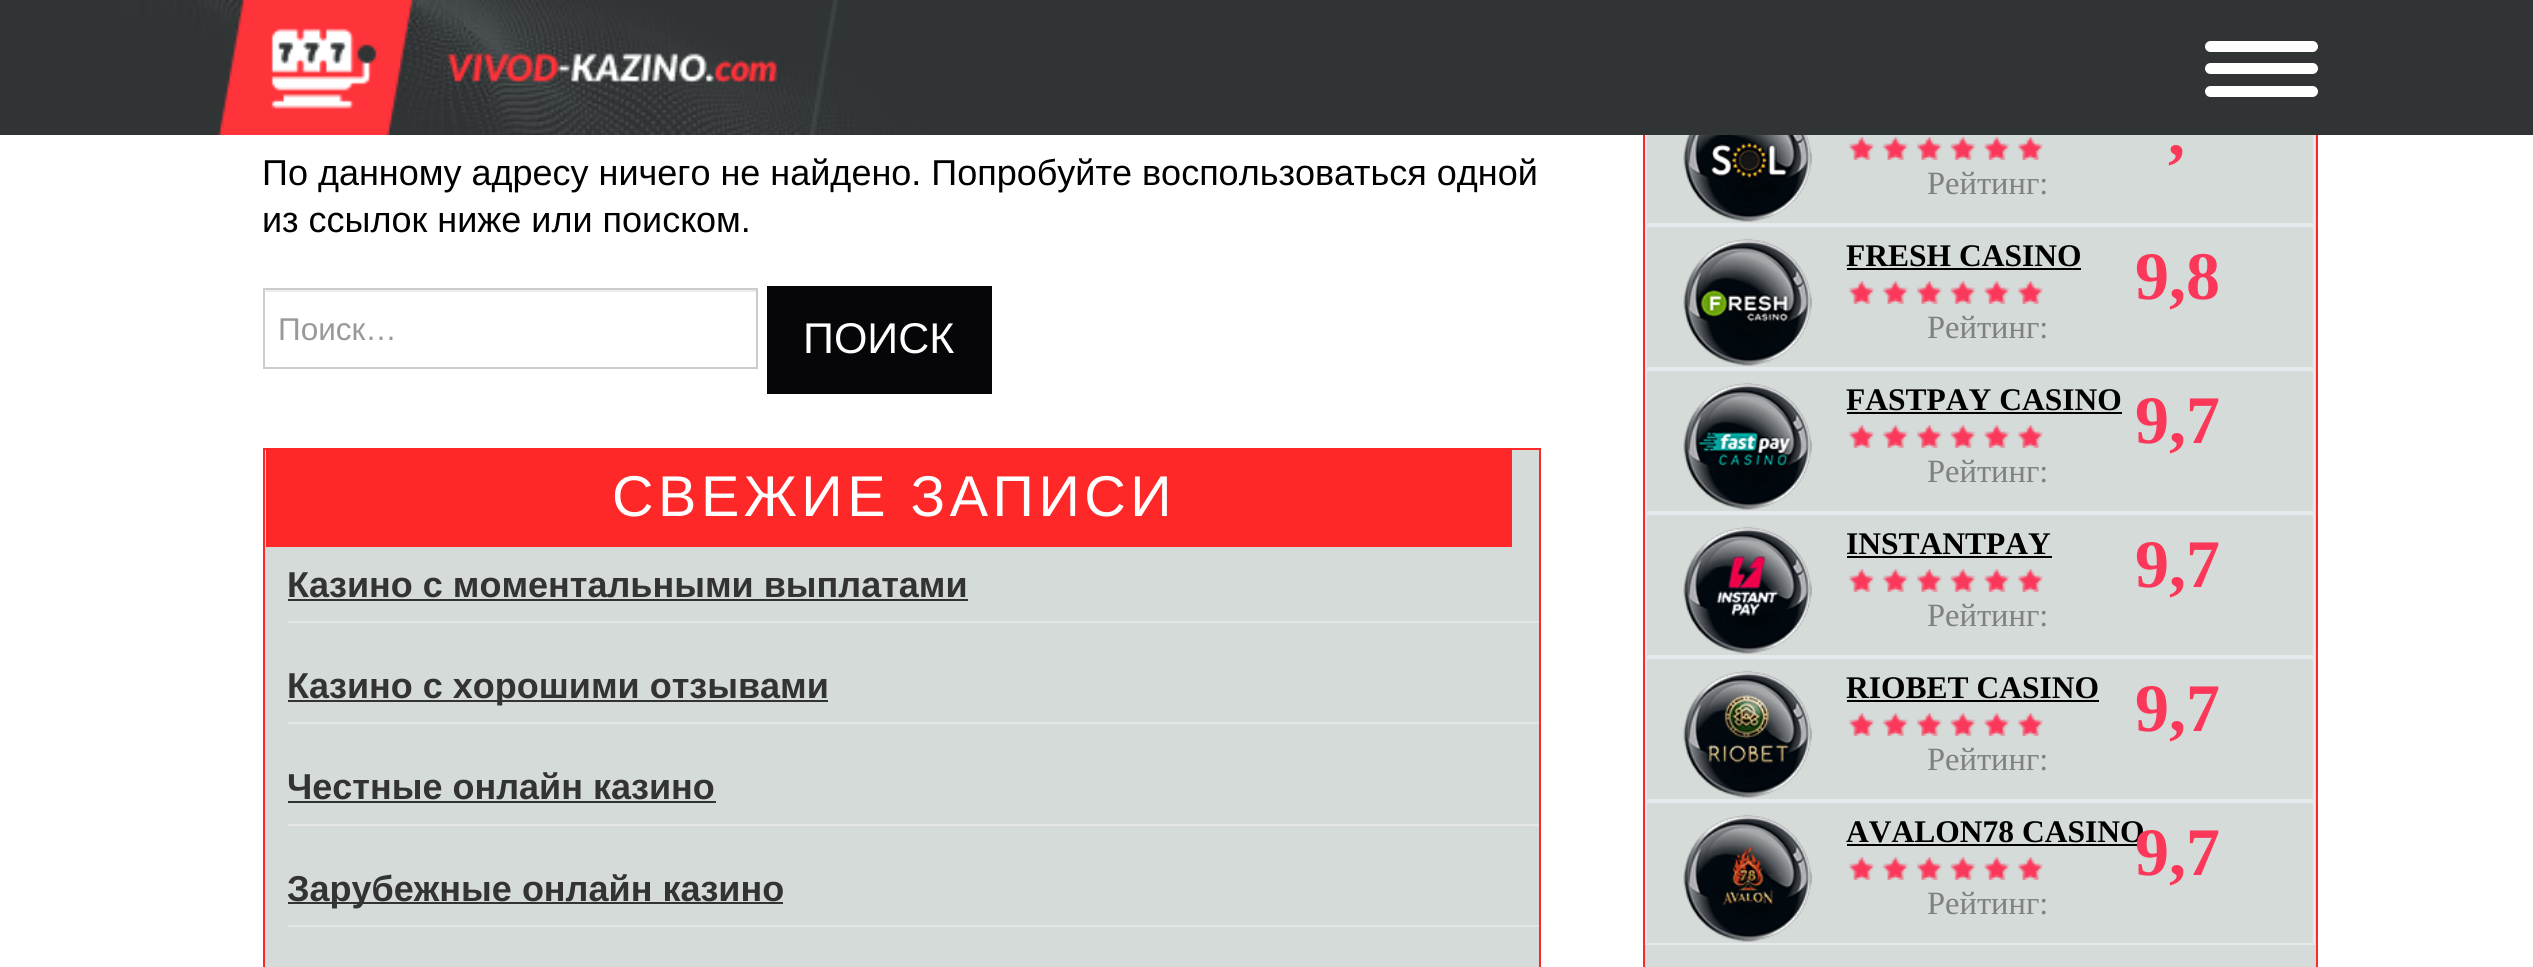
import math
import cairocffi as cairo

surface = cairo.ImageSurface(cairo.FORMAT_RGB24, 2533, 967)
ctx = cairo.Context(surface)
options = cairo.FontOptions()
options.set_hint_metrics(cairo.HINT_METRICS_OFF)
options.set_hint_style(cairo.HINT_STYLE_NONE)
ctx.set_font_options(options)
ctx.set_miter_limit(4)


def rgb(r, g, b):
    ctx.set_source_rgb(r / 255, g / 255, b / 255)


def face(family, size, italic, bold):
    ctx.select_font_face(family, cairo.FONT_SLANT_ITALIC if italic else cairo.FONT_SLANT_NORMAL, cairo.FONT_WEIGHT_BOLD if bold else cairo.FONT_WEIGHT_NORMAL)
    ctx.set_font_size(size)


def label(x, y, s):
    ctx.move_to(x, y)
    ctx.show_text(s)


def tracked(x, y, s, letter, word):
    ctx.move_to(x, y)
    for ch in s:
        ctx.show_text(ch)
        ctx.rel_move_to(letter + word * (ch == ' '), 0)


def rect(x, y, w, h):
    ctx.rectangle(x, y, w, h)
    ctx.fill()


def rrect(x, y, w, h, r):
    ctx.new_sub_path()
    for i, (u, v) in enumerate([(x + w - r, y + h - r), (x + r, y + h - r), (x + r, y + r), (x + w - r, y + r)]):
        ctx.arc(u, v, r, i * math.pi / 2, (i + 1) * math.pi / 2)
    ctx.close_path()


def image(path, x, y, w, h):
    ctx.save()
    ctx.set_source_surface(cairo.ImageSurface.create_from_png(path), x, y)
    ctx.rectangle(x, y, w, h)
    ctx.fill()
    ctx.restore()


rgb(255, 255, 255)
ctx.paint()
rgb(213, 219, 216)
rect(1645, 135, 671, 832)
ctx.rectangle(1644, -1, 673, 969)
rgb(255, 40, 40)
ctx.stroke()
ctx.rectangle(1646, 82, 668, 142)
rgb(231, 234, 236)
ctx.stroke()
image('image0.png', 0, 0, 2533, 135)
image('image1.png', 217, 0, 621, 135)
rgb(255, 255, 255)
rrect(2205, 41, 113, 11, 5.5)
ctx.fill()
rrect(2205, 63, 113, 11, 5.5)
ctx.fill()
rrect(2205, 86, 113, 11, 5.5)
ctx.fill()
face('Liberation Sans', 36, 0, 0)
rgb(0, 0, 0)
label(262, 185, 'По данному адресу ничего не найдено. Попробуйте воспользоваться одной')
label(262, 232, 'из ссылок ниже или поиском.')
rgb(236, 236, 236)
rect(266, 290, 490, 2)
ctx.rectangle(264, 289, 493, 79)
rgb(204, 204, 204)
ctx.stroke()
face('Liberation Sans', 31.5, 0, 0)
rgb(153, 153, 153)
label(278, 340, 'Поиск…')
rgb(6, 6, 8)
rect(767, 286, 225, 108)
face('Liberation Sans', 43, 0, 0)
rgb(255, 255, 255)
label(803, 353, 'ПОИСК')
rgb(213, 219, 216)
ctx.rectangle(264, 449, 1276, 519)
ctx.fill_preserve()
rgb(255, 40, 40)
ctx.stroke()
rect(266, 450, 1246, 97)
rgb(214, 214, 214)
rect(266, 547, 1246, 2)
face('Liberation Sans', 57.5, 0, 0)
rgb(255, 255, 255)
tracked(612, 516, 'СВЕЖИЕ ЗАПИСИ', 4.5, 0)
rgb(230, 230, 230)
rect(288, 621, 1251, 2)
face('Liberation Sans', 36, 0, 1)
rgb(51, 51, 51)
label(287, 597, 'Казино с моментальными выплатами')
rect(288, 599, 680, 2)
rgb(230, 230, 230)
rect(288, 722, 1251, 2)
rgb(51, 51, 51)
rect(288, 700, 540, 2)
label(287, 698, 'Казино с хорошими отзывами')
rgb(230, 230, 230)
rect(288, 824, 1251, 2)
rgb(51, 51, 51)
label(287, 799, 'Честные онлайн казино')
rect(288, 801, 428, 2)
rgb(230, 230, 230)
rect(288, 925, 1251, 2)
rgb(51, 51, 51)
rect(288, 902, 495, 2)
label(287, 901, 'Зарубежные онлайн казино')
image('image2.png', 1683, 135, 129, 87)
image('image3.png', 1849, 137, 26, 23)
image('image4.png', 1883, 137, 25, 23)
image('image5.png', 1917, 137, 25, 23)
image('image6.png', 1950, 137, 26, 23)
image('image3.png', 1984, 137, 26, 23)
image('image7.png', 2018, 137, 25, 23)
face('Liberation Serif', 68, 0, 1)
rgb(251, 56, 90)
label(2168, 155, ',')
face('Liberation Serif', 32.5, 0, 0)
rgb(128, 128, 128)
label(1927, 194, 'Рейтинг:')
ctx.rectangle(1646, 226, 668, 142)
rgb(231, 234, 236)
ctx.stroke()
image('image8.png', 1683, 238, 129, 128)
face('Liberation Serif', 31.5, 0, 1)
rgb(0, 0, 0)
label(1846, 266, 'FRESH CASINO')
rect(1847, 268, 234, 2)
face('Liberation Serif', 68, 0, 1)
rgb(251, 56, 90)
label(2135, 299, '9,8')
image('image3.png', 1849, 281, 26, 23)
image('image4.png', 1883, 281, 25, 23)
image('image5.png', 1917, 281, 25, 23)
image('image6.png', 1950, 281, 26, 23)
image('image3.png', 1984, 281, 26, 23)
image('image7.png', 2018, 281, 25, 23)
face('Liberation Serif', 32.5, 0, 0)
rgb(128, 128, 128)
label(1927, 338, 'Рейтинг:')
ctx.rectangle(1646, 370, 668, 142)
rgb(231, 234, 236)
ctx.stroke()
image('image9.png', 1683, 382, 129, 128)
face('Liberation Serif', 31.5, 0, 1)
rgb(0, 0, 0)
label(1846, 410, 'FASTPAY CASINO')
rect(1847, 412, 275, 2)
face('Liberation Serif', 68, 0, 1)
rgb(251, 56, 90)
label(2135, 443, '9,7')
image('image3.png', 1849, 425, 26, 23)
image('image4.png', 1883, 425, 25, 23)
image('image5.png', 1917, 425, 25, 23)
image('image6.png', 1950, 425, 26, 23)
image('image3.png', 1984, 425, 26, 23)
image('image7.png', 2018, 425, 25, 23)
face('Liberation Serif', 32.5, 0, 0)
rgb(128, 128, 128)
label(1927, 482, 'Рейтинг:')
ctx.rectangle(1646, 514, 668, 142)
rgb(231, 234, 236)
ctx.stroke()
image('image10.png', 1683, 526, 129, 128)
face('Liberation Serif', 31.5, 0, 1)
rgb(0, 0, 0)
label(1846, 554, 'INSTANTPAY')
rect(1847, 556, 205, 2)
face('Liberation Serif', 68, 0, 1)
rgb(251, 56, 90)
label(2135, 587, '9,7')
image('image3.png', 1849, 569, 26, 23)
image('image4.png', 1883, 569, 25, 23)
image('image5.png', 1917, 569, 25, 23)
image('image6.png', 1950, 569, 26, 23)
image('image3.png', 1984, 569, 26, 23)
image('image7.png', 2018, 569, 25, 23)
face('Liberation Serif', 32.5, 0, 0)
rgb(128, 128, 128)
label(1927, 626, 'Рейтинг:')
ctx.rectangle(1646, 658, 668, 142)
rgb(231, 234, 236)
ctx.stroke()
image('image11.png', 1683, 670, 129, 128)
face('Liberation Serif', 31.5, 0, 1)
rgb(0, 0, 0)
label(1846, 698, 'RIOBET CASINO')
rect(1847, 700, 252, 2)
face('Liberation Serif', 68, 0, 1)
rgb(251, 56, 90)
label(2135, 731, '9,7')
image('image3.png', 1849, 713, 26, 23)
image('image4.png', 1883, 713, 25, 23)
image('image5.png', 1917, 713, 25, 23)
image('image6.png', 1950, 713, 26, 23)
image('image3.png', 1984, 713, 26, 23)
image('image7.png', 2018, 713, 25, 23)
face('Liberation Serif', 32.5, 0, 0)
rgb(128, 128, 128)
label(1927, 770, 'Рейтинг:')
ctx.rectangle(1646, 802, 668, 142)
rgb(231, 234, 236)
ctx.stroke()
image('image12.png', 1683, 814, 129, 128)
face('Liberation Serif', 31.5, 0, 1)
rgb(0, 0, 0)
label(1846, 842, 'AVALON78 CASINO')
rect(1847, 844, 297, 2)
face('Liberation Serif', 68, 0, 1)
rgb(251, 56, 90)
label(2135, 875, '9,7')
image('image3.png', 1849, 857, 26, 23)
image('image4.png', 1883, 857, 25, 23)
image('image5.png', 1917, 857, 25, 23)
image('image6.png', 1950, 857, 26, 23)
image('image3.png', 1984, 857, 26, 23)
image('image7.png', 2018, 857, 25, 23)
face('Liberation Serif', 32.5, 0, 0)
rgb(128, 128, 128)
label(1927, 914, 'Рейтинг:')
surface.write_to_png('render.png')
